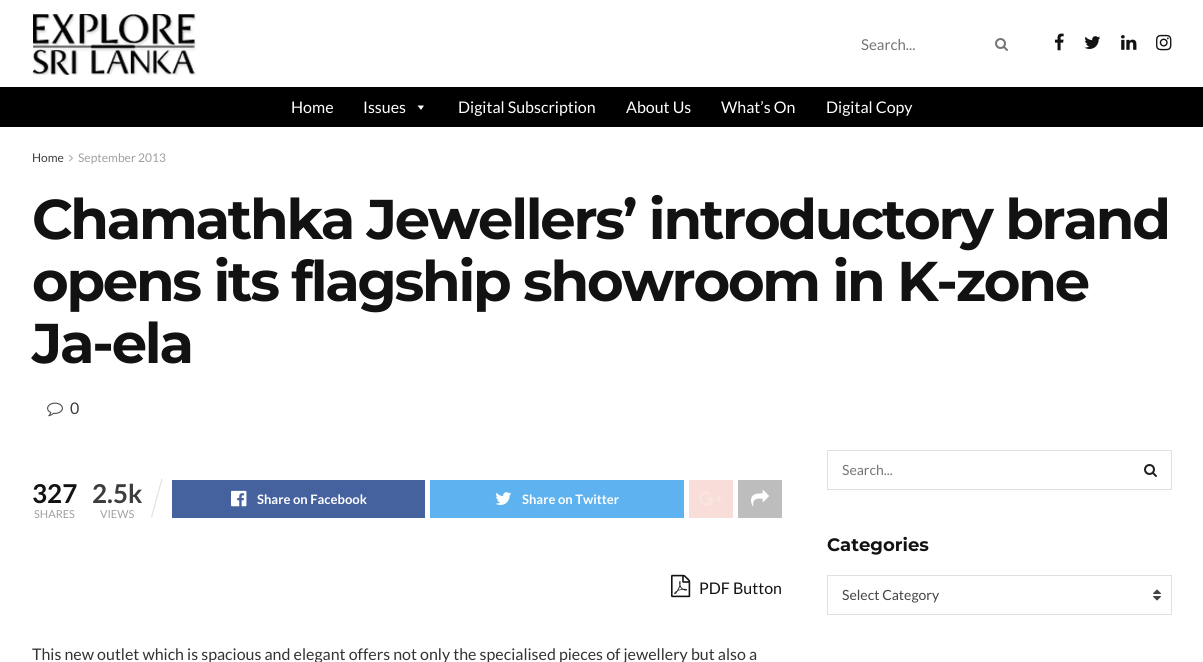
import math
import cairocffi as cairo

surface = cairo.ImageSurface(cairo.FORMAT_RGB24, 1203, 662)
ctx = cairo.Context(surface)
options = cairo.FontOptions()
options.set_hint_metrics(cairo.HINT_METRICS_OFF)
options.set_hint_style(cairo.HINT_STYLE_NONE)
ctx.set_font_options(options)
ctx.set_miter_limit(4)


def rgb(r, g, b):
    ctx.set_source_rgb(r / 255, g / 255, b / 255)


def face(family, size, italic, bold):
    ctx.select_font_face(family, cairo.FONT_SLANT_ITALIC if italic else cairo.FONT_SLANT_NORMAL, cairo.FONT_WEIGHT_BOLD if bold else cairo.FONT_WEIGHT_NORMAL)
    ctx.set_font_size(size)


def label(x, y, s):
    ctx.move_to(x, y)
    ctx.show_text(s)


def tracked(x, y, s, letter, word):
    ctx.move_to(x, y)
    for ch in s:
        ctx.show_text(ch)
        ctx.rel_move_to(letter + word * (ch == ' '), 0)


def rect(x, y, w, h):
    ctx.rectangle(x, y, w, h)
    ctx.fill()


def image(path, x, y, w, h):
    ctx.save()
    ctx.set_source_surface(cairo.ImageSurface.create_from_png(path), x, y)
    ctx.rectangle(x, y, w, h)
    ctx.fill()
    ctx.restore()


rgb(255, 255, 255)
ctx.paint()
image('image0.png', 33, 14, 163, 61)
face('Lato', 15, 0, 0)
rgb(117, 117, 117)
label(861, 50, 'Search...')
image('image1.png', 995, 38, 13, 13)
image('image2.png', 1054, 33, 10, 18)
image('image3.png', 1084, 36, 17, 13)
image('image4.png', 1121, 35, 16, 15)
image('image5.png', 1156, 34, 16, 17)
rgb(0, 0, 0)
rect(0, 87, 1203, 40)
face('Lato', 16, 0, 0)
rgb(255, 255, 255)
label(291, 113, 'Home')
label(363, 113, 'Issues')
ctx.new_path()
ctx.move_to(424, 105.5)
ctx.line_to(421, 110)
ctx.line_to(417.5, 105.5)
ctx.close_path()
ctx.fill()
label(458, 113, 'Digital Subscription')
label(626, 113, 'About Us')
label(721, 113, 'What’s On')
label(826, 113, 'Digital Copy')
face('Lato', 12, 0, 0)
rgb(61, 61, 61)
label(32, 162, 'Home')
image('image6.png', 69, 154, 4, 8)
rgb(160, 160, 160)
label(78, 162, 'September 2013')
face('Montserrat', 56, 0, 1)
rgb(18, 18, 18)
tracked(32, 239, 'Chamathka Jewellers’ introductory brand', -2.25, 0)
tracked(32, 301, 'opens its flagship showroom in K-zone', -2.25, 0)
tracked(32, 363, 'Ja-ela', -2.25, 0)
image('image7.png', 47, 402, 16, 15)
face('Lato', 16, 0, 0)
rgb(61, 61, 61)
tracked(70, 414, '0', 1, 0)
face('Lato', 26, 0, 1)
rgb(18, 18, 18)
label(32, 503, '327')
face('Lato', 11, 0, 0)
rgb(160, 160, 160)
label(34, 518, 'SHARES')
face('Lato', 26, 0, 1)
rgb(61, 61, 61)
label(92, 503, '2.5k')
rgb(224, 224, 224)
ctx.new_path()
ctx.move_to(161.5, 478.5)
ctx.line_to(162.5, 479)
ctx.line_to(152, 517.5)
ctx.line_to(151, 517)
ctx.close_path()
ctx.fill()
face('Lato', 11, 0, 0)
rgb(160, 160, 160)
label(100, 518, 'VIEWS')
rgb(69, 98, 159)
rect(172, 480, 253, 38)
image('image8.png', 231, 490, 16, 17)
face('Lato', 13, 0, 1)
rgb(255, 255, 255)
label(257, 504, 'Share on Facebook')
rgb(94, 178, 239)
rect(430, 480, 254, 38)
image('image9.png', 495, 492, 17, 13)
rgb(255, 255, 255)
label(522, 504, 'Share on Twitter')
rgb(249, 221, 217)
rect(689, 480, 44, 38)
image('image10.png', 699, 491, 23, 15)
rgb(189, 189, 189)
rect(738, 480, 44, 38)
image('image11.png', 751, 490, 18, 17)
image('image12.png', 671, 574, 20, 24)
face('Lato', 16, 0, 0)
rgb(18, 18, 18)
label(699, 594, 'PDF Button')
rgb(51, 51, 51)
label(32, 660, 'This new outlet which is spacious and elegant offers not only the specialised pieces of jewellery but also a')
ctx.rectangle(827.5, 450.5, 344, 39)
rgb(224, 224, 224)
ctx.set_line_width(1)
ctx.stroke()
face('Lato', 14, 0, 0)
rgb(117, 117, 117)
label(842, 475, 'Search...')
image('image13.png', 1144, 464, 13, 13)
face('Montserrat', 18, 0, 1)
rgb(18, 18, 18)
label(827, 551, 'Categories')
ctx.rectangle(827.5, 575.5, 344, 39)
rgb(224, 224, 224)
ctx.stroke()
face('Lato', 14, 0, 0)
rgb(68, 68, 68)
label(842, 600, 'Select Category')
image('image14.png', 1153, 589, 8, 12)
surface.write_to_png('render.png')
